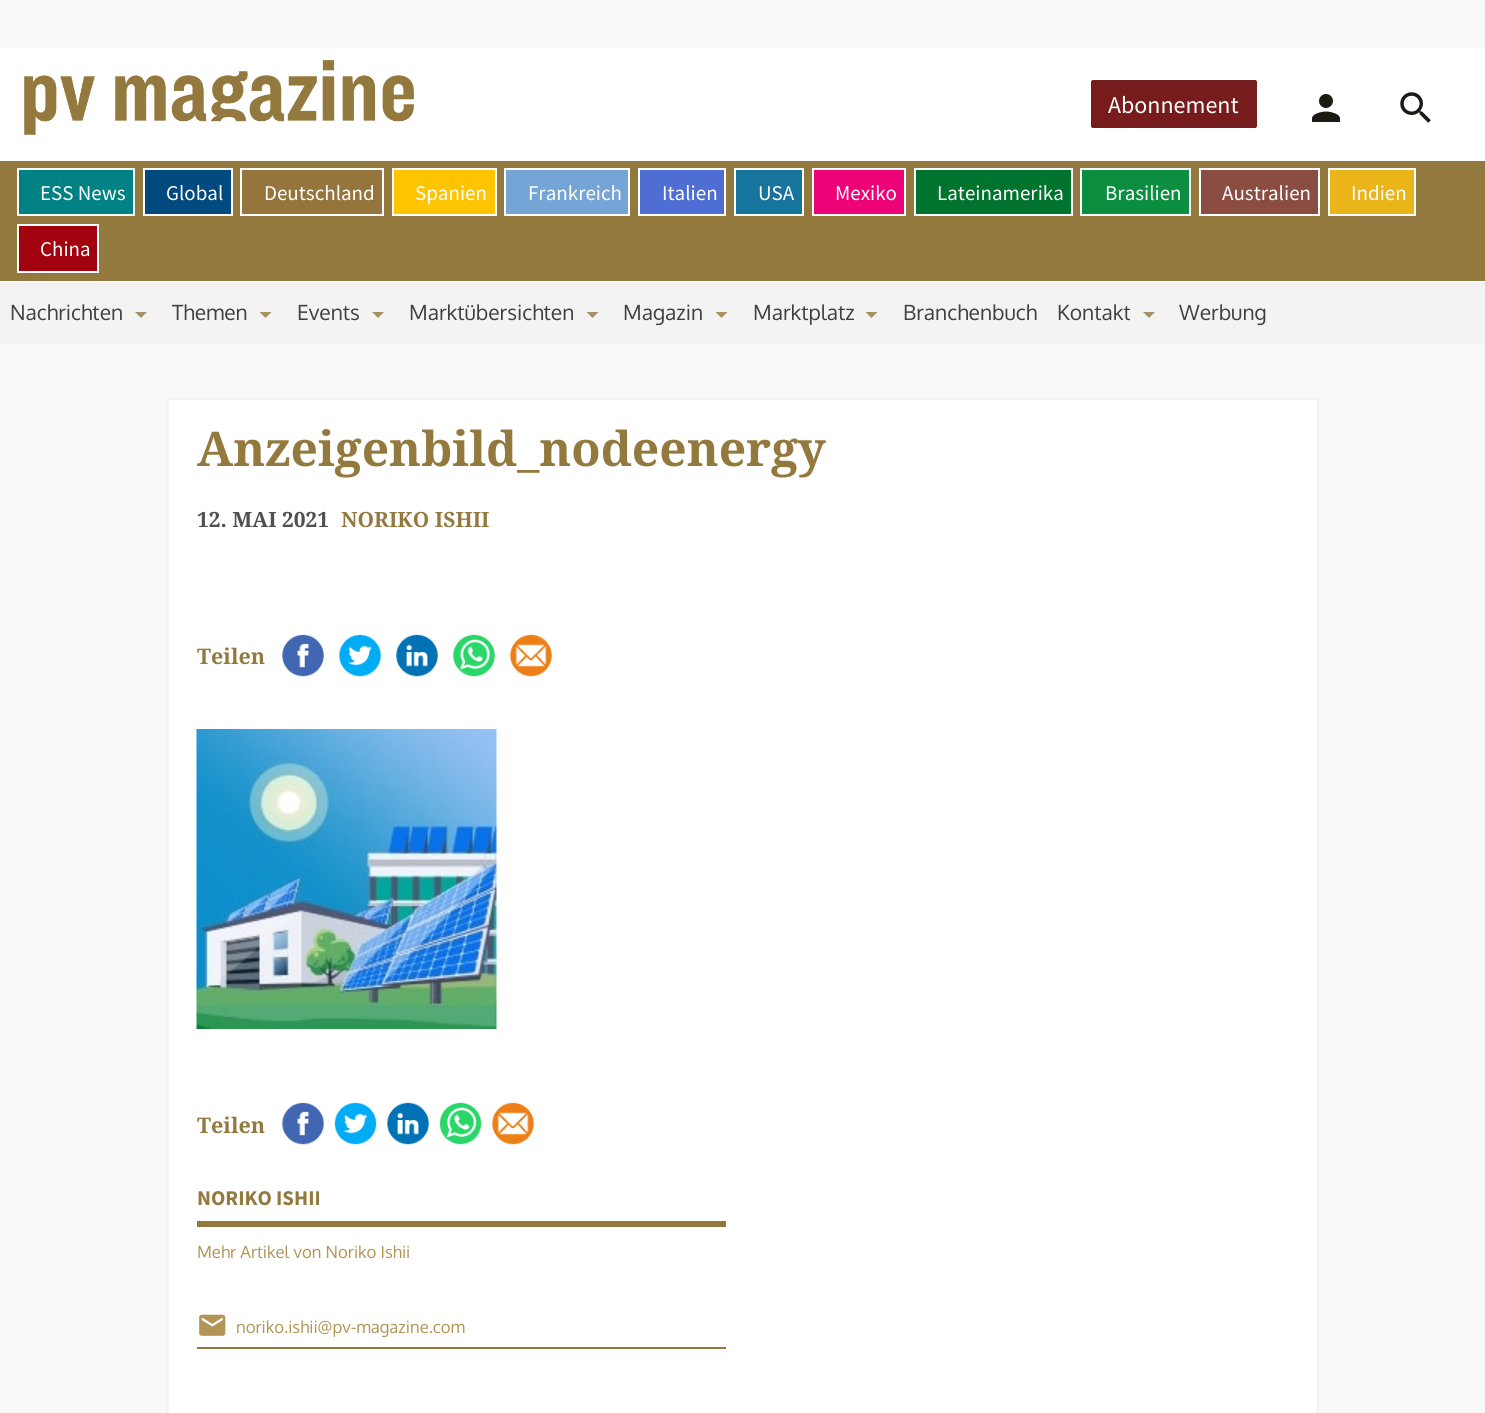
import math
import cairocffi as cairo

surface = cairo.ImageSurface(cairo.FORMAT_RGB24, 1485, 1413)
ctx = cairo.Context(surface)
options = cairo.FontOptions()
options.set_hint_metrics(cairo.HINT_METRICS_OFF)
options.set_hint_style(cairo.HINT_STYLE_NONE)
ctx.set_font_options(options)
ctx.set_miter_limit(4)


def rgb(r, g, b):
    ctx.set_source_rgb(r / 255, g / 255, b / 255)


def face(family, size, italic, bold):
    ctx.select_font_face(family, cairo.FONT_SLANT_ITALIC if italic else cairo.FONT_SLANT_NORMAL, cairo.FONT_WEIGHT_BOLD if bold else cairo.FONT_WEIGHT_NORMAL)
    ctx.set_font_size(size)


def label(x, y, s):
    ctx.move_to(x, y)
    ctx.show_text(s)


def rect(x, y, w, h):
    ctx.rectangle(x, y, w, h)
    ctx.fill()


def rrect(x, y, w, h, r):
    ctx.new_sub_path()
    for i, (u, v) in enumerate([(x + w - r, y + h - r), (x + r, y + h - r), (x + r, y + r), (x + w - r, y + r)]):
        ctx.arc(u, v, r, i * math.pi / 2, (i + 1) * math.pi / 2)
    ctx.close_path()


def image(path, x, y, w, h):
    ctx.save()
    ctx.set_source_surface(cairo.ImageSurface.create_from_png(path), x, y)
    ctx.rectangle(x, y, w, h)
    ctx.fill()
    ctx.restore()


rgb(249, 249, 249)
ctx.paint()
rgb(255, 255, 255)
rect(0, 48, 1485, 113)
image('image0.png', 24, 60, 390, 75)
rgb(119, 28, 29)
rrect(1091, 80, 166, 48, 2)
ctx.fill()
face('Source Sans Pro', 24, 0, 0)
rgb(255, 255, 255)
label(1108, 113, 'Abonnement')
image('image1.png', 1311, 94, 30, 28)
image('image2.png', 1400, 92, 31, 31)
rgb(148, 121, 63)
rect(0, 161, 1485, 120)
rgb(255, 255, 255)
rect(0, 281, 1485, 1)
rgb(0, 130, 132)
ctx.rectangle(18, 169, 116, 46)
ctx.fill_preserve()
rgb(255, 255, 255)
ctx.stroke()
face('Source Sans Pro', 21, 0, 0)
label(40, 200, 'ESS News')
rgb(0, 74, 127)
ctx.rectangle(144, 169, 88, 46)
ctx.fill_preserve()
rgb(255, 255, 255)
ctx.stroke()
label(166, 200, 'Global')
rgb(149, 117, 60)
ctx.rectangle(241, 169, 142, 46)
ctx.fill_preserve()
rgb(255, 255, 255)
ctx.stroke()
label(264, 200, 'Deutschland')
rgb(255, 196, 0)
ctx.rectangle(393, 169, 103, 46)
ctx.fill_preserve()
rgb(255, 255, 255)
ctx.stroke()
label(415, 200, 'Spanien')
rgb(117, 164, 214)
ctx.rectangle(505, 169, 124, 46)
ctx.fill_preserve()
rgb(255, 255, 255)
ctx.stroke()
label(528, 200, 'Frankreich')
rgb(79, 110, 211)
ctx.rectangle(639, 169, 86, 46)
ctx.fill_preserve()
rgb(255, 255, 255)
ctx.stroke()
label(662, 200, 'Italien')
rgb(23, 116, 157)
ctx.rectangle(735, 169, 68, 46)
ctx.fill_preserve()
rgb(255, 255, 255)
ctx.stroke()
label(758, 200, 'USA')
rgb(237, 2, 119)
ctx.rectangle(813, 169, 92, 46)
ctx.fill_preserve()
rgb(255, 255, 255)
ctx.stroke()
label(835, 200, 'Mexiko')
rgb(0, 115, 46)
ctx.rectangle(915, 169, 157, 46)
ctx.fill_preserve()
rgb(255, 255, 255)
ctx.stroke()
label(937, 200, 'Lateinamerika')
rgb(11, 142, 64)
ctx.rectangle(1081, 169, 109, 46)
ctx.fill_preserve()
rgb(255, 255, 255)
ctx.stroke()
label(1105, 200, 'Brasilien')
rgb(139, 77, 66)
ctx.rectangle(1200, 169, 119, 46)
ctx.fill_preserve()
rgb(255, 255, 255)
ctx.stroke()
label(1222, 200, 'Australien')
rgb(234, 181, 25)
ctx.rectangle(1329, 169, 86, 46)
ctx.fill_preserve()
rgb(255, 255, 255)
ctx.stroke()
label(1351, 200, 'Indien')
rgb(162, 1, 14)
ctx.rectangle(18, 225, 80, 47)
ctx.fill_preserve()
rgb(255, 255, 255)
ctx.stroke()
label(40, 256, 'China')
rgb(243, 243, 243)
rect(0, 282, 1485, 62)
face('Oxygen', 21, 0, 0)
rgb(64, 64, 64)
label(10, 320, 'Nachrichten')
rgb(167, 145, 99)
ctx.new_path()
ctx.move_to(135, 312)
ctx.line_to(147, 312)
ctx.line_to(141, 318)
ctx.close_path()
ctx.fill()
rgb(64, 64, 64)
label(172, 320, 'Themen')
rgb(167, 145, 99)
ctx.new_path()
ctx.move_to(259.5, 312)
ctx.line_to(271.5, 312)
ctx.line_to(265.5, 318)
ctx.close_path()
ctx.fill()
rgb(64, 64, 64)
label(297, 320, 'Events')
rgb(167, 145, 99)
ctx.new_path()
ctx.move_to(372, 312)
ctx.line_to(384, 312)
ctx.line_to(378, 318)
ctx.close_path()
ctx.fill()
rgb(64, 64, 64)
label(409, 320, 'Marktübersichten')
rgb(167, 145, 99)
ctx.new_path()
ctx.move_to(586.5, 312)
ctx.line_to(598.5, 312)
ctx.line_to(592.5, 318)
ctx.close_path()
ctx.fill()
rgb(64, 64, 64)
label(623, 320, 'Magazin')
rgb(167, 145, 99)
ctx.new_path()
ctx.move_to(715.5, 312)
ctx.line_to(727.5, 312)
ctx.line_to(721.5, 318)
ctx.close_path()
ctx.fill()
rgb(64, 64, 64)
label(753, 320, 'Marktplatz')
rgb(167, 145, 99)
ctx.new_path()
ctx.move_to(865.5, 312)
ctx.line_to(877.5, 312)
ctx.line_to(871.5, 318)
ctx.close_path()
ctx.fill()
rgb(64, 64, 64)
label(903, 320, 'Branchenbuch')
label(1057, 320, 'Kontakt')
rgb(167, 145, 99)
ctx.new_path()
ctx.move_to(1143, 312)
ctx.line_to(1155, 312)
ctx.line_to(1149, 318)
ctx.close_path()
ctx.fill()
rgb(64, 64, 64)
label(1179, 320, 'Werbung')
rgb(255, 255, 255)
ctx.rectangle(168, 399, 1150, 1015)
ctx.fill_preserve()
rgb(243, 243, 243)
ctx.stroke()
face('Droid Serif', 48, 0, 1)
rgb(148, 121, 63)
label(197, 466, 'Anzeigenbild_nodeenergy')
face('Droid Serif', 21, 0, 1)
rgb(80, 80, 80)
label(197, 527, '12. MAI 2021')
rgb(148, 121, 63)
label(341, 527, 'NORIKO ISHII')
face('Droid Serif', 21.5, 0, 1)
label(197, 664, 'Teilen')
image('image3.png', 282, 633, 42, 45)
image('image4.png', 339, 633, 42, 44)
image('image5.png', 396, 633, 42, 45)
image('image6.png', 453, 633, 42, 45)
image('image7.png', 510, 633, 42, 45)
image('image8.png', 196, 729, 301, 300)
label(197, 1133, 'Teilen')
image('image3.png', 282, 1101, 42, 45)
image('image9.png', 333, 1101, 45, 45)
image('image5.png', 387, 1101, 42, 45)
image('image10.png', 438, 1101, 45, 45)
image('image11.png', 492, 1101, 42, 45)
rect(197, 1347, 529, 2)
rect(197, 1221, 529, 6)
face('Source Sans Pro', 21, 0, 1)
label(197, 1205, 'NORIKO ISHII')
face('Oxygen', 16.75, 0, 0)
rgb(178, 148, 84)
label(197, 1258, 'Mehr Artikel von Noriko Ishii')
image('image12.png', 199, 1314, 27, 22)
label(236, 1333, 'noriko.ishii@pv-magazine.com')
surface.write_to_png('render.png')
